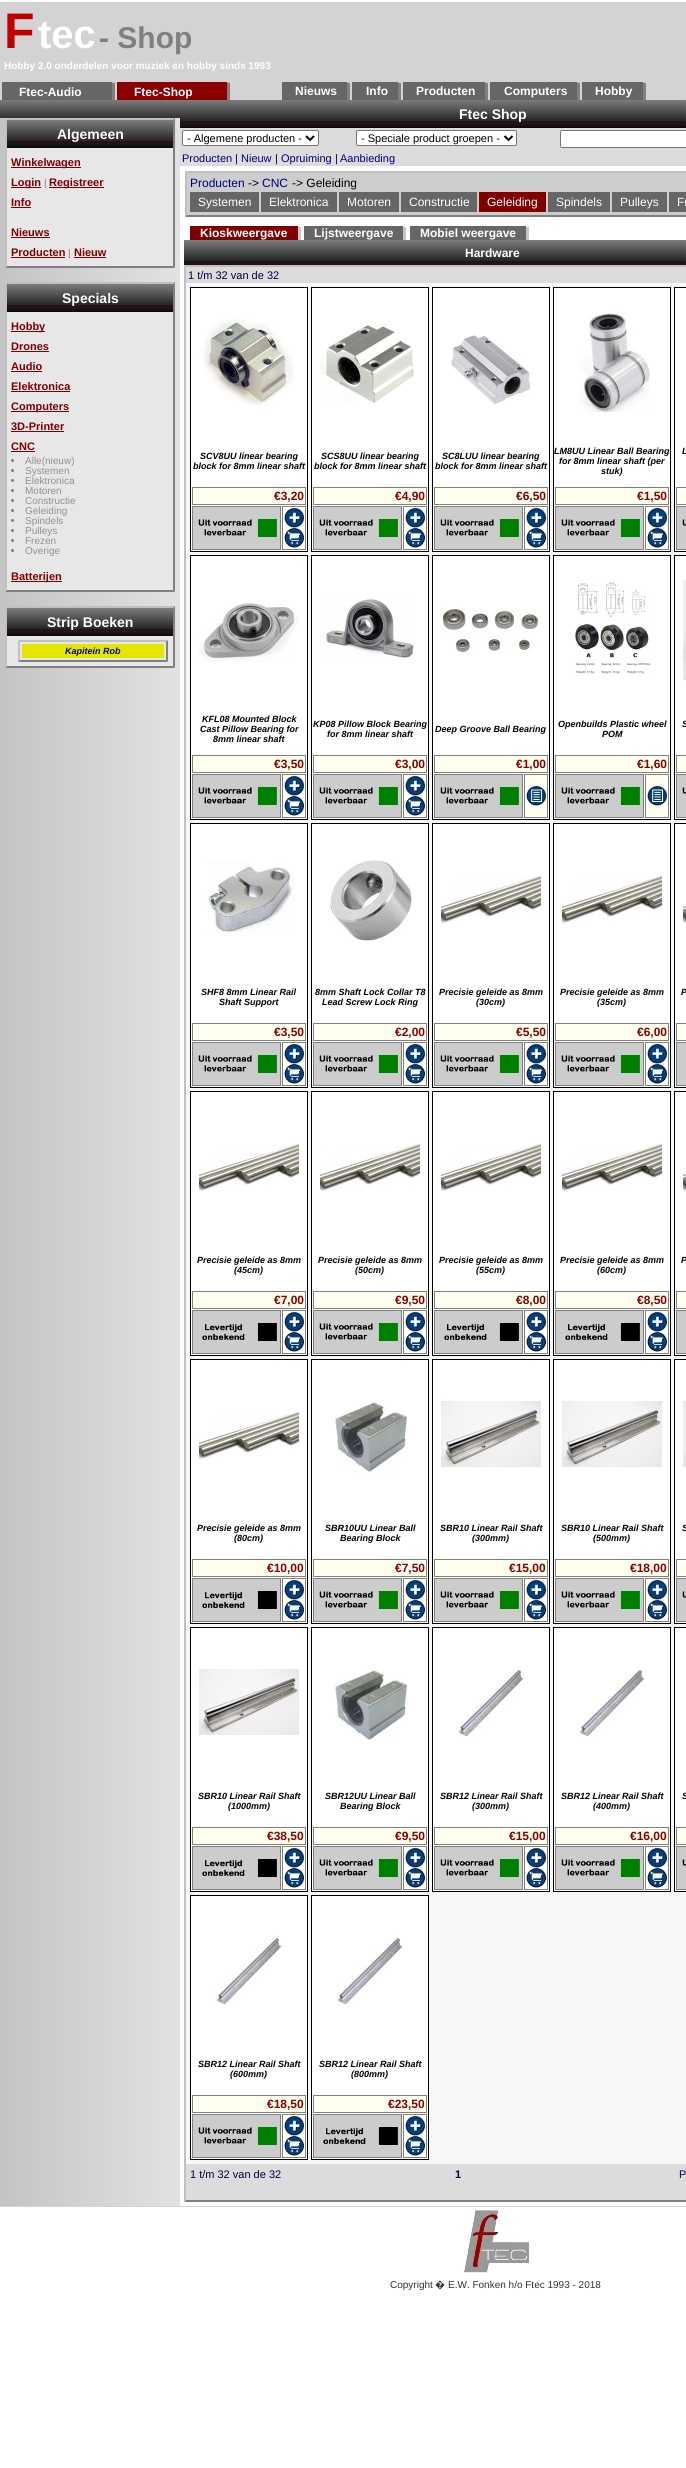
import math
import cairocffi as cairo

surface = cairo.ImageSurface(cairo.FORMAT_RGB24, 686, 2468)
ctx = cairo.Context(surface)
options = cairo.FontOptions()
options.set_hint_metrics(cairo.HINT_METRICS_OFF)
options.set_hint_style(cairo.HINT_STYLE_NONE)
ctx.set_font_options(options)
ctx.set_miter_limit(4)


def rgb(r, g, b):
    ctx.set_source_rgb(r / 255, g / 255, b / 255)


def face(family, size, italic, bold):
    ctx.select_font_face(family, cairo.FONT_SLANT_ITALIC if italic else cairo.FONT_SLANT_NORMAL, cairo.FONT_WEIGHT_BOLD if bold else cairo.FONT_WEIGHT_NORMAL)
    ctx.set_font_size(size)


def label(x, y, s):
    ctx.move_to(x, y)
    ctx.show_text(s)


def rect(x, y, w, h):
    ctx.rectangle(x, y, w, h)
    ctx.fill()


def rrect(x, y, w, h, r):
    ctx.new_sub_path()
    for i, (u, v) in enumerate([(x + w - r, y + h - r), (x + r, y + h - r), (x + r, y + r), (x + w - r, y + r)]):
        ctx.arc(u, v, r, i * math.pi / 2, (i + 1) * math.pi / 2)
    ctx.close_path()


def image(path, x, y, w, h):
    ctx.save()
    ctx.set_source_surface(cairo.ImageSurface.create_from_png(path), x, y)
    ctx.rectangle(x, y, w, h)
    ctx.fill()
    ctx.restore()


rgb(255, 255, 255)
ctx.paint()
rgb(211, 211, 211)
rect(0, 2, 686, 98)
face('Liberation Sans', 50, 0, 1)
rgb(191, 0, 0)
label(4, 48, 'F')
face('Liberation Sans', 40, 0, 1)
rgb(255, 255, 255)
label(38, 48, 'tec')
face('Liberation Sans', 30, 0, 1)
rgb(128, 128, 128)
label(99, 48, '- Shop')
face('Liberation Sans', 10, 0, 1)
rgb(255, 255, 255)
label(4, 69, 'Hobby 2.0 onderdelen voor muziek en hobby sinds 1993')
rgb(102, 102, 102)
rect(2, 82, 110, 18)
face('Liberation Sans', 12, 0, 1)
rgb(255, 255, 255)
label(19, 96, 'Ftec-Audio')
rgb(192, 192, 192)
rect(112, 82, 3, 1)
rgb(128, 128, 128)
rect(112, 83, 3, 17)
rgb(139, 0, 0)
rect(117, 82, 110, 18)
rgb(255, 255, 255)
label(134, 96, 'Ftec-Shop')
rgb(192, 192, 192)
rect(227, 82, 3, 1)
rgb(128, 128, 128)
rect(227, 83, 3, 17)
rgb(102, 102, 102)
rect(282, 82, 65, 18)
rgb(255, 255, 255)
label(295, 95, 'Nieuws')
rgb(192, 192, 192)
rect(347, 82, 3, 1)
rgb(128, 128, 128)
rect(347, 83, 3, 17)
rgb(102, 102, 102)
rect(352, 82, 46, 18)
rgb(255, 255, 255)
label(366, 95, 'Info')
rgb(192, 192, 192)
rect(398, 82, 3, 1)
rgb(128, 128, 128)
rect(398, 83, 3, 17)
rgb(102, 102, 102)
rect(403, 82, 82, 18)
rgb(255, 255, 255)
label(416, 95, 'Producten')
rgb(192, 192, 192)
rect(485, 82, 3, 1)
rgb(128, 128, 128)
rect(485, 83, 3, 17)
rgb(102, 102, 102)
rect(490, 82, 87, 18)
rgb(255, 255, 255)
label(504, 95, 'Computers')
rgb(192, 192, 192)
rect(577, 82, 3, 1)
rgb(128, 128, 128)
rect(577, 83, 3, 17)
rgb(102, 102, 102)
rect(582, 82, 61, 18)
rgb(255, 255, 255)
label(595, 95, 'Hobby')
rgb(192, 192, 192)
rect(643, 82, 3, 1)
rgb(128, 128, 128)
rect(643, 83, 3, 17)
image('image0.png', 0, 118, 180, 2088)
image('image1.png', 0, 100, 180, 18)
rgb(231, 231, 231)
rect(5, 118, 170, 150)
rgb(192, 192, 192)
ctx.new_path()
ctx.move_to(5, 118)
ctx.line_to(175, 118)
ctx.line_to(173, 120)
ctx.line_to(7, 120)
ctx.close_path()
ctx.fill()
rgb(128, 128, 128)
ctx.new_path()
ctx.move_to(175, 118)
ctx.line_to(175, 268)
ctx.line_to(173, 266)
ctx.line_to(173, 120)
ctx.close_path()
ctx.fill()
ctx.new_path()
ctx.move_to(175, 268)
ctx.line_to(5, 268)
ctx.line_to(7, 266)
ctx.line_to(173, 266)
ctx.close_path()
ctx.fill()
rgb(192, 192, 192)
ctx.new_path()
ctx.move_to(5, 268)
ctx.line_to(5, 118)
ctx.line_to(7, 120)
ctx.line_to(7, 266)
ctx.close_path()
ctx.fill()
image('image2.png', 7, 120, 166, 28)
face('Liberation Sans', 14, 0, 1)
rgb(255, 255, 255)
label(57, 139, 'Algemeen')
rgb(128, 0, 0)
rect(11, 167, 70, 1)
face('Liberation Sans', 11, 0, 1)
label(11, 166, 'Winkelwagen')
rect(11, 187, 30, 1)
label(11, 186, 'Login')
face('Liberation Sans', 10, 0, 0)
rgb(128, 128, 128)
label(44, 186, '|')
rgb(128, 0, 0)
rect(49, 187, 55, 1)
face('Liberation Sans', 11, 0, 1)
label(49, 186, 'Registreer')
label(11, 206, 'Info')
rect(11, 207, 20, 1)
label(11, 236, 'Nieuws')
rect(11, 237, 39, 1)
label(11, 256, 'Producten')
rect(11, 257, 54, 1)
face('Liberation Sans', 10, 0, 0)
rgb(128, 128, 128)
label(68, 256, '|')
face('Liberation Sans', 11, 0, 1)
rgb(128, 0, 0)
label(74, 256, 'Nieuw')
rect(74, 257, 32, 1)
rgb(231, 231, 231)
rect(5, 282, 170, 310)
rgb(192, 192, 192)
ctx.new_path()
ctx.move_to(5, 282)
ctx.line_to(175, 282)
ctx.line_to(173, 284)
ctx.line_to(7, 284)
ctx.close_path()
ctx.fill()
rgb(128, 128, 128)
ctx.new_path()
ctx.move_to(175, 282)
ctx.line_to(175, 592)
ctx.line_to(173, 590)
ctx.line_to(173, 284)
ctx.close_path()
ctx.fill()
ctx.new_path()
ctx.move_to(175, 592)
ctx.line_to(5, 592)
ctx.line_to(7, 590)
ctx.line_to(173, 590)
ctx.close_path()
ctx.fill()
rgb(192, 192, 192)
ctx.new_path()
ctx.move_to(5, 592)
ctx.line_to(5, 282)
ctx.line_to(7, 284)
ctx.line_to(7, 590)
ctx.close_path()
ctx.fill()
image('image2.png', 7, 284, 166, 28)
face('Liberation Sans', 14, 0, 1)
rgb(255, 255, 255)
label(62, 303, 'Specials')
rgb(128, 0, 0)
rect(11, 331, 34, 1)
face('Liberation Sans', 11, 0, 1)
label(11, 330, 'Hobby')
label(11, 350, 'Drones')
rect(11, 351, 38, 1)
label(11, 370, 'Audio')
rect(11, 371, 31, 1)
label(11, 390, 'Elektronica')
rect(11, 391, 59, 1)
rect(11, 411, 58, 1)
label(11, 410, 'Computers')
label(11, 430, '3D-Printer')
rect(11, 431, 53, 1)
label(11, 450, 'CNC')
rect(11, 451, 24, 1)
rgb(128, 128, 128)
ctx.new_path()
ctx.arc(12.5, 460.5, 1.5, 0, 2 * math.pi)
ctx.fill()
face('Liberation Sans', 10, 0, 0)
rgb(146, 146, 146)
label(25, 464, 'Alle(nieuw)')
rgb(128, 128, 128)
ctx.new_path()
ctx.arc(12.5, 470.5, 1.5, 0, 2 * math.pi)
ctx.fill()
rgb(146, 146, 146)
label(25, 474, 'Systemen')
rgb(128, 128, 128)
ctx.new_path()
ctx.arc(12.5, 480.5, 1.5, 0, 2 * math.pi)
ctx.fill()
rgb(146, 146, 146)
label(25, 484, 'Elektronica')
rgb(128, 128, 128)
ctx.new_path()
ctx.arc(12.5, 490.5, 1.5, 0, 2 * math.pi)
ctx.fill()
rgb(146, 146, 146)
label(25, 494, 'Motoren')
rgb(128, 128, 128)
ctx.new_path()
ctx.arc(12.5, 500.5, 1.5, 0, 2 * math.pi)
ctx.fill()
rgb(146, 146, 146)
label(25, 504, 'Constructie')
rgb(128, 128, 128)
ctx.new_path()
ctx.arc(12.5, 510.5, 1.5, 0, 2 * math.pi)
ctx.fill()
rgb(146, 146, 146)
label(25, 514, 'Geleiding')
rgb(128, 128, 128)
ctx.new_path()
ctx.arc(12.5, 520.5, 1.5, 0, 2 * math.pi)
ctx.fill()
rgb(146, 146, 146)
label(25, 524, 'Spindels')
rgb(128, 128, 128)
ctx.new_path()
ctx.arc(12.5, 530.5, 1.5, 0, 2 * math.pi)
ctx.fill()
rgb(146, 146, 146)
label(25, 534, 'Pulleys')
rgb(128, 128, 128)
ctx.new_path()
ctx.arc(12.5, 540.5, 1.5, 0, 2 * math.pi)
ctx.fill()
rgb(146, 146, 146)
label(25, 544, 'Frezen')
rgb(128, 128, 128)
ctx.new_path()
ctx.arc(12.5, 550.5, 1.5, 0, 2 * math.pi)
ctx.fill()
rgb(146, 146, 146)
label(25, 554, 'Overige')
rgb(128, 0, 0)
rect(11, 581, 51, 1)
face('Liberation Sans', 11, 0, 1)
label(11, 580, 'Batterijen')
rgb(231, 231, 231)
rect(5, 606, 170, 62)
rgb(192, 192, 192)
ctx.new_path()
ctx.move_to(5, 606)
ctx.line_to(175, 606)
ctx.line_to(173, 608)
ctx.line_to(7, 608)
ctx.close_path()
ctx.fill()
rgb(128, 128, 128)
ctx.new_path()
ctx.move_to(175, 606)
ctx.line_to(175, 668)
ctx.line_to(173, 666)
ctx.line_to(173, 608)
ctx.close_path()
ctx.fill()
ctx.new_path()
ctx.move_to(175, 668)
ctx.line_to(5, 668)
ctx.line_to(7, 666)
ctx.line_to(173, 666)
ctx.close_path()
ctx.fill()
rgb(192, 192, 192)
ctx.new_path()
ctx.move_to(5, 668)
ctx.line_to(5, 606)
ctx.line_to(7, 608)
ctx.line_to(7, 666)
ctx.close_path()
ctx.fill()
image('image2.png', 7, 608, 166, 28)
face('Liberation Sans', 14, 0, 1)
rgb(255, 255, 255)
label(47, 627, 'Strip Boeken')
rgb(192, 192, 192)
ctx.new_path()
ctx.move_to(18, 640)
ctx.line_to(168, 640)
ctx.line_to(166, 642)
ctx.line_to(20, 642)
ctx.close_path()
ctx.fill()
rgb(128, 128, 128)
ctx.new_path()
ctx.move_to(168, 640)
ctx.line_to(168, 662)
ctx.line_to(166, 660)
ctx.line_to(166, 642)
ctx.close_path()
ctx.fill()
ctx.new_path()
ctx.move_to(168, 662)
ctx.line_to(18, 662)
ctx.line_to(20, 660)
ctx.line_to(166, 660)
ctx.close_path()
ctx.fill()
rgb(192, 192, 192)
ctx.new_path()
ctx.move_to(18, 662)
ctx.line_to(18, 640)
ctx.line_to(20, 642)
ctx.line_to(20, 660)
ctx.close_path()
ctx.fill()
rgb(229, 230, 0)
rect(22, 644, 142, 14)
face('Liberation Sans', 9, 1, 1)
rgb(0, 0, 128)
label(65, 654, 'Kapitein Rob')
image('image3.png', 180, 100, 506, 28)
face('Liberation Sans', 14, 0, 1)
rgb(255, 255, 255)
label(459, 119, 'Ftec Shop')
rgb(220, 220, 220)
rect(180, 128, 506, 38)
rgb(255, 255, 255)
rrect(182.5, 130.5, 136, 15, 1.5)
ctx.fill_preserve()
rgb(118, 118, 118)
ctx.set_line_width(1)
ctx.stroke()
ctx.new_path()
ctx.move_to(306, 136)
ctx.line_to(310, 140)
ctx.line_to(314, 136)
rgb(0, 0, 0)
ctx.set_line_width(2)
ctx.stroke()
face('Liberation Sans', 11, 0, 0)
label(187, 142, '- Algemene producten -')
rgb(255, 255, 255)
rrect(356.5, 130.5, 160, 15, 1.5)
ctx.fill_preserve()
rgb(118, 118, 118)
ctx.set_line_width(1)
ctx.stroke()
ctx.new_path()
ctx.move_to(504.5, 136)
ctx.line_to(508.5, 140)
ctx.line_to(512.5, 136)
rgb(0, 0, 0)
ctx.set_line_width(2)
ctx.stroke()
label(361, 142, '- Speciale product groepen -')
rgb(255, 255, 255)
rrect(560.5, 130.5, 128, 17, 1.5)
ctx.fill_preserve()
rgb(118, 118, 118)
ctx.set_line_width(1)
ctx.stroke()
rgb(0, 0, 128)
label(182, 162, 'Producten')
rgb(0, 0, 64)
label(235, 162, '|')
rgb(0, 0, 128)
label(241, 162, 'Nieuw')
rgb(0, 0, 64)
label(275, 162, '|')
rgb(0, 0, 128)
label(281, 162, 'Opruiming')
rgb(0, 0, 64)
label(335, 162, '|')
rgb(0, 0, 128)
label(340, 162, 'Aanbieding')
rgb(205, 205, 205)
rect(185, 171, 501, 46)
rgb(192, 192, 192)
ctx.new_path()
ctx.move_to(185, 171)
ctx.line_to(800, 171)
ctx.line_to(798, 173)
ctx.line_to(187, 173)
ctx.close_path()
ctx.fill()
rgb(128, 128, 128)
ctx.new_path()
ctx.move_to(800, 217)
ctx.line_to(185, 217)
ctx.line_to(187, 215)
ctx.line_to(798, 215)
ctx.close_path()
ctx.fill()
rgb(192, 192, 192)
ctx.new_path()
ctx.move_to(185, 217)
ctx.line_to(185, 171)
ctx.line_to(187, 173)
ctx.line_to(187, 215)
ctx.close_path()
ctx.fill()
face('Liberation Sans', 12, 0, 0)
rgb(0, 0, 128)
label(190, 187, 'Producten')
rgb(0, 0, 0)
label(248, 187, '->')
rgb(0, 0, 128)
label(262, 187, 'CNC')
rgb(0, 0, 0)
label(292, 187, '-> Geleiding')
rgb(102, 102, 102)
rect(190, 192, 69, 20)
rgb(255, 255, 255)
label(198, 206, 'Systemen')
rgb(102, 102, 102)
rect(261, 192, 76, 20)
rgb(255, 255, 255)
label(269, 206, 'Elektronica')
rgb(102, 102, 102)
rect(339, 192, 60, 20)
rgb(255, 255, 255)
label(347, 206, 'Motoren')
rgb(102, 102, 102)
rect(401, 192, 76, 20)
rgb(255, 255, 255)
label(409, 206, 'Constructie')
rgb(128, 0, 0)
rect(479, 192, 67, 20)
rgb(255, 255, 255)
label(487, 206, 'Geleiding')
rgb(102, 102, 102)
rect(548, 192, 62, 20)
rgb(255, 255, 255)
label(556, 206, 'Spindels')
rgb(102, 102, 102)
rect(612, 192, 55, 20)
rgb(255, 255, 255)
label(620, 206, 'Pulleys')
rgb(102, 102, 102)
rect(669, 192, 17, 20)
rgb(255, 255, 255)
label(677, 206, 'Fr')
rgb(128, 0, 0)
rect(190, 226, 108, 14)
face('Liberation Sans', 12, 0, 1)
rgb(255, 255, 255)
label(200, 237, 'Kioskweergave')
rgb(198, 198, 198)
rect(298, 227, 3, 13)
rgb(102, 102, 102)
rect(304, 226, 99, 14)
rgb(255, 255, 255)
label(314, 237, 'Lijstweergave')
rgb(198, 198, 198)
rect(403, 227, 3, 13)
rgb(102, 102, 102)
rect(410, 226, 116, 14)
rgb(255, 255, 255)
label(420, 237, 'Mobiel weergave')
rgb(198, 198, 198)
rect(526, 227, 3, 13)
image('image4.png', 184, 240, 502, 25)
rgb(255, 255, 255)
label(465, 257, 'Hardware')
rgb(192, 192, 192)
ctx.new_path()
ctx.move_to(184, 265)
ctx.line_to(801, 265)
ctx.line_to(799, 267)
ctx.line_to(186, 267)
ctx.close_path()
ctx.fill()
rgb(128, 128, 128)
ctx.new_path()
ctx.move_to(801, 2202)
ctx.line_to(184, 2202)
ctx.line_to(186, 2200)
ctx.line_to(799, 2200)
ctx.close_path()
ctx.fill()
rgb(192, 192, 192)
ctx.new_path()
ctx.move_to(184, 2202)
ctx.line_to(184, 265)
ctx.line_to(186, 267)
ctx.line_to(186, 2200)
ctx.close_path()
ctx.fill()
rgb(220, 220, 220)
rect(186, 267, 500, 16)
face('Liberation Sans', 11, 0, 0)
rgb(0, 0, 64)
label(188, 279, '1 t/m 32 van de 32')
rgb(247, 247, 247)
rect(186, 283, 500, 1881)
rgb(255, 255, 255)
ctx.rectangle(553.5, 287.5, 117, 264)
ctx.fill_preserve()
rgb(0, 0, 0)
ctx.stroke()
image('image5.png', 578, 312, 72, 100)
face('Liberation Sans', 9, 1, 1)
label(554, 454, 'LM8UU Linear Ball Bearing')
label(559, 464, 'for 8mm linear shaft (per')
label(601, 474, 'stuk)')
rgb(255, 255, 240)
ctx.rectangle(555.5, 487.5, 113, 17)
ctx.fill_preserve()
rgb(128, 128, 128)
ctx.stroke()
face('Liberation Sans', 12, 0, 1)
rgb(136, 0, 0)
label(637, 500, '€1,50')
rgb(204, 204, 204)
ctx.rectangle(555.5, 506.5, 88, 43)
ctx.fill_preserve()
rgb(128, 128, 128)
ctx.stroke()
image('image6.png', 561, 517, 80, 22)
rgb(255, 255, 240)
ctx.rectangle(645.5, 506.5, 23, 43)
ctx.fill_preserve()
rgb(128, 128, 128)
ctx.stroke()
image('image7.png', 647, 508, 20, 20)
image('image8.png', 647, 528, 20, 20)
rgb(255, 255, 255)
ctx.rectangle(674.5, 287.5, 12, 264)
ctx.fill_preserve()
rgb(0, 0, 0)
ctx.stroke()
face('Liberation Sans', 9, 1, 1)
label(682, 454, 'L')
rgb(255, 255, 240)
ctx.rectangle(676.5, 487.5, 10, 17)
ctx.fill_preserve()
rgb(128, 128, 128)
ctx.stroke()
rgb(204, 204, 204)
ctx.rectangle(676.5, 506.5, 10, 43)
ctx.fill_preserve()
rgb(128, 128, 128)
ctx.stroke()
image('image9.png', 682, 519, 4, 7)
rgb(255, 255, 255)
ctx.rectangle(190.5, 287.5, 117, 264)
ctx.fill_preserve()
rgb(0, 0, 0)
ctx.stroke()
image('image10.png', 202, 319, 93, 88)
label(200, 459, 'SCV8UU linear bearing')
label(193, 469, 'block for 8mm linear shaft')
rgb(255, 255, 240)
ctx.rectangle(192.5, 487.5, 113, 17)
ctx.fill_preserve()
rgb(128, 128, 128)
ctx.stroke()
face('Liberation Sans', 12, 0, 1)
rgb(136, 0, 0)
label(274, 500, '€3,20')
rgb(204, 204, 204)
ctx.rectangle(192.5, 506.5, 88, 43)
ctx.fill_preserve()
rgb(128, 128, 128)
ctx.stroke()
image('image6.png', 198, 517, 80, 22)
rgb(255, 255, 240)
ctx.rectangle(282.5, 506.5, 23, 43)
ctx.fill_preserve()
rgb(128, 128, 128)
ctx.stroke()
image('image7.png', 284, 508, 20, 20)
image('image8.png', 284, 528, 20, 20)
rgb(255, 255, 255)
ctx.rectangle(311.5, 287.5, 117, 264)
ctx.fill_preserve()
rgb(0, 0, 0)
ctx.stroke()
image('image11.png', 320, 321, 96, 83)
face('Liberation Sans', 9, 1, 1)
label(321, 459, 'SCS8UU linear bearing')
label(314, 469, 'block for 8mm linear shaft')
rgb(255, 255, 240)
ctx.rectangle(313.5, 487.5, 113, 17)
ctx.fill_preserve()
rgb(128, 128, 128)
ctx.stroke()
face('Liberation Sans', 12, 0, 1)
rgb(136, 0, 0)
label(395, 500, '€4,90')
rgb(204, 204, 204)
ctx.rectangle(313.5, 506.5, 88, 43)
ctx.fill_preserve()
rgb(128, 128, 128)
ctx.stroke()
image('image6.png', 319, 517, 80, 22)
rgb(255, 255, 240)
ctx.rectangle(403.5, 506.5, 23, 43)
ctx.fill_preserve()
rgb(128, 128, 128)
ctx.stroke()
image('image7.png', 405, 508, 20, 20)
image('image8.png', 405, 528, 20, 20)
rgb(255, 255, 255)
ctx.rectangle(432.5, 287.5, 117, 264)
ctx.fill_preserve()
rgb(0, 0, 0)
ctx.stroke()
image('image12.png', 450, 334, 81, 73)
face('Liberation Sans', 9, 1, 1)
label(442, 459, 'SC8LUU linear bearing')
label(435, 469, 'block for 8mm linear shaft')
rgb(255, 255, 240)
ctx.rectangle(434.5, 487.5, 113, 17)
ctx.fill_preserve()
rgb(128, 128, 128)
ctx.stroke()
face('Liberation Sans', 12, 0, 1)
rgb(136, 0, 0)
label(516, 500, '€6,50')
rgb(204, 204, 204)
ctx.rectangle(434.5, 506.5, 88, 43)
ctx.fill_preserve()
rgb(128, 128, 128)
ctx.stroke()
image('image6.png', 440, 517, 80, 22)
rgb(255, 255, 240)
ctx.rectangle(524.5, 506.5, 23, 43)
ctx.fill_preserve()
rgb(128, 128, 128)
ctx.stroke()
image('image7.png', 526, 508, 20, 20)
image('image8.png', 526, 528, 20, 20)
rgb(255, 255, 255)
ctx.rectangle(190.5, 555.5, 117, 264)
ctx.fill_preserve()
rgb(0, 0, 0)
ctx.stroke()
image('image13.png', 199, 603, 100, 59)
face('Liberation Sans', 9, 1, 1)
label(202, 722, 'KFL08 Mounted Block')
label(200, 732, 'Cast Pillow Bearing for')
label(213, 742, '8mm linear shaft')
rgb(255, 255, 240)
ctx.rectangle(192.5, 755.5, 113, 17)
ctx.fill_preserve()
rgb(128, 128, 128)
ctx.stroke()
face('Liberation Sans', 12, 0, 1)
rgb(136, 0, 0)
label(274, 768, '€3,50')
rgb(204, 204, 204)
ctx.rectangle(192.5, 774.5, 88, 43)
ctx.fill_preserve()
rgb(128, 128, 128)
ctx.stroke()
image('image14.png', 198, 785, 80, 22)
rgb(255, 255, 240)
ctx.rectangle(282.5, 774.5, 23, 43)
ctx.fill_preserve()
rgb(128, 128, 128)
ctx.stroke()
image('image7.png', 284, 776, 20, 20)
image('image8.png', 284, 796, 20, 20)
rgb(255, 255, 255)
ctx.rectangle(311.5, 555.5, 117, 264)
ctx.fill_preserve()
rgb(0, 0, 0)
ctx.stroke()
image('image15.png', 320, 596, 96, 63)
face('Liberation Sans', 9, 1, 1)
label(313, 727, 'KP08 Pillow Block Bearing')
label(327, 737, 'for 8mm linear shaft')
rgb(255, 255, 240)
ctx.rectangle(313.5, 755.5, 113, 17)
ctx.fill_preserve()
rgb(128, 128, 128)
ctx.stroke()
face('Liberation Sans', 12, 0, 1)
rgb(136, 0, 0)
label(395, 768, '€3,00')
rgb(204, 204, 204)
ctx.rectangle(313.5, 774.5, 88, 43)
ctx.fill_preserve()
rgb(128, 128, 128)
ctx.stroke()
image('image14.png', 319, 785, 80, 22)
rgb(255, 255, 240)
ctx.rectangle(403.5, 774.5, 23, 43)
ctx.fill_preserve()
rgb(128, 128, 128)
ctx.stroke()
image('image7.png', 405, 776, 20, 20)
image('image8.png', 405, 796, 20, 20)
rgb(255, 255, 255)
ctx.rectangle(553.5, 555.5, 117, 264)
ctx.fill_preserve()
rgb(0, 0, 0)
ctx.stroke()
image('image16.png', 571, 580, 79, 96)
face('Liberation Sans', 9, 1, 1)
label(558, 727, 'Openbuilds Plastic wheel')
label(602, 737, 'POM')
rgb(255, 255, 240)
ctx.rectangle(555.5, 755.5, 113, 17)
ctx.fill_preserve()
rgb(128, 128, 128)
ctx.stroke()
face('Liberation Sans', 12, 0, 1)
rgb(136, 0, 0)
label(637, 768, '€1,60')
rgb(204, 204, 204)
ctx.rectangle(555.5, 774.5, 88, 43)
ctx.fill_preserve()
rgb(128, 128, 128)
ctx.stroke()
image('image14.png', 561, 785, 80, 22)
rgb(255, 255, 240)
ctx.rectangle(645.5, 774.5, 23, 43)
ctx.fill_preserve()
rgb(128, 128, 128)
ctx.stroke()
image('image17.png', 647, 786, 20, 20)
rgb(255, 255, 255)
ctx.rectangle(674.5, 555.5, 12, 264)
ctx.fill_preserve()
rgb(0, 0, 0)
ctx.stroke()
image('image18.png', 683, 580, 3, 100)
face('Liberation Sans', 9, 1, 1)
label(682, 727, 'S')
rgb(255, 255, 240)
ctx.rectangle(676.5, 755.5, 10, 17)
ctx.fill_preserve()
rgb(128, 128, 128)
ctx.stroke()
rgb(204, 204, 204)
ctx.rectangle(676.5, 774.5, 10, 43)
ctx.fill_preserve()
rgb(128, 128, 128)
ctx.stroke()
image('image9.png', 682, 787, 4, 7)
rgb(255, 255, 255)
ctx.rectangle(432.5, 555.5, 117, 264)
ctx.fill_preserve()
rgb(0, 0, 0)
ctx.stroke()
image('image19.png', 441, 607, 98, 47)
label(435, 732, 'Deep Groove Ball Bearing')
rgb(255, 255, 240)
ctx.rectangle(434.5, 755.5, 113, 17)
ctx.fill_preserve()
rgb(128, 128, 128)
ctx.stroke()
face('Liberation Sans', 12, 0, 1)
rgb(136, 0, 0)
label(516, 768, '€1,00')
rgb(204, 204, 204)
ctx.rectangle(434.5, 774.5, 88, 43)
ctx.fill_preserve()
rgb(128, 128, 128)
ctx.stroke()
image('image14.png', 440, 785, 80, 22)
rgb(255, 255, 240)
ctx.rectangle(524.5, 774.5, 23, 43)
ctx.fill_preserve()
rgb(128, 128, 128)
ctx.stroke()
image('image17.png', 526, 786, 20, 20)
rgb(255, 255, 255)
ctx.rectangle(190.5, 823.5, 117, 264)
ctx.fill_preserve()
rgb(0, 0, 0)
ctx.stroke()
image('image20.png', 207, 859, 88, 74)
face('Liberation Sans', 9, 1, 1)
label(201, 995, 'SHF8 8mm Linear Rail')
label(219, 1005, 'Shaft Support')
rgb(255, 255, 240)
ctx.rectangle(192.5, 1023.5, 113, 17)
ctx.fill_preserve()
rgb(128, 128, 128)
ctx.stroke()
face('Liberation Sans', 12, 0, 1)
rgb(136, 0, 0)
label(274, 1036, '€3,50')
rgb(204, 204, 204)
ctx.rectangle(192.5, 1042.5, 88, 43)
ctx.fill_preserve()
rgb(128, 128, 128)
ctx.stroke()
image('image14.png', 198, 1053, 80, 22)
rgb(255, 255, 240)
ctx.rectangle(282.5, 1042.5, 23, 43)
ctx.fill_preserve()
rgb(128, 128, 128)
ctx.stroke()
image('image7.png', 284, 1044, 20, 20)
image('image8.png', 284, 1064, 20, 20)
rgb(255, 255, 255)
ctx.rectangle(311.5, 823.5, 117, 264)
ctx.fill_preserve()
rgb(0, 0, 0)
ctx.stroke()
image('image21.png', 330, 860, 82, 81)
face('Liberation Sans', 9, 1, 1)
label(315, 995, '8mm Shaft Lock Collar T8')
label(322, 1005, 'Lead Screw Lock Ring')
rgb(255, 255, 240)
ctx.rectangle(313.5, 1023.5, 113, 17)
ctx.fill_preserve()
rgb(128, 128, 128)
ctx.stroke()
face('Liberation Sans', 12, 0, 1)
rgb(136, 0, 0)
label(395, 1036, '€2,00')
rgb(204, 204, 204)
ctx.rectangle(313.5, 1042.5, 88, 43)
ctx.fill_preserve()
rgb(128, 128, 128)
ctx.stroke()
image('image14.png', 319, 1053, 80, 22)
rgb(255, 255, 240)
ctx.rectangle(403.5, 1042.5, 23, 43)
ctx.fill_preserve()
rgb(128, 128, 128)
ctx.stroke()
image('image7.png', 405, 1044, 20, 20)
image('image8.png', 405, 1064, 20, 20)
rgb(255, 255, 255)
ctx.rectangle(432.5, 823.5, 117, 264)
ctx.fill_preserve()
rgb(0, 0, 0)
ctx.stroke()
image('image22.png', 441, 875, 100, 49)
face('Liberation Sans', 9, 1, 1)
label(439, 995, 'Precisie geleide as 8mm')
label(476, 1005, '(30cm)')
rgb(255, 255, 240)
ctx.rectangle(434.5, 1023.5, 113, 17)
ctx.fill_preserve()
rgb(128, 128, 128)
ctx.stroke()
face('Liberation Sans', 12, 0, 1)
rgb(136, 0, 0)
label(516, 1036, '€5,50')
rgb(204, 204, 204)
ctx.rectangle(434.5, 1042.5, 88, 43)
ctx.fill_preserve()
rgb(128, 128, 128)
ctx.stroke()
image('image14.png', 440, 1053, 80, 22)
rgb(255, 255, 240)
ctx.rectangle(524.5, 1042.5, 23, 43)
ctx.fill_preserve()
rgb(128, 128, 128)
ctx.stroke()
image('image7.png', 526, 1044, 20, 20)
image('image8.png', 526, 1064, 20, 20)
rgb(255, 255, 255)
ctx.rectangle(553.5, 823.5, 117, 264)
ctx.fill_preserve()
rgb(0, 0, 0)
ctx.stroke()
image('image22.png', 562, 875, 100, 49)
face('Liberation Sans', 9, 1, 1)
label(560, 995, 'Precisie geleide as 8mm')
label(597, 1005, '(35cm)')
rgb(255, 255, 240)
ctx.rectangle(555.5, 1023.5, 113, 17)
ctx.fill_preserve()
rgb(128, 128, 128)
ctx.stroke()
face('Liberation Sans', 12, 0, 1)
rgb(136, 0, 0)
label(637, 1036, '€6,00')
rgb(204, 204, 204)
ctx.rectangle(555.5, 1042.5, 88, 43)
ctx.fill_preserve()
rgb(128, 128, 128)
ctx.stroke()
image('image14.png', 561, 1053, 80, 22)
rgb(255, 255, 240)
ctx.rectangle(645.5, 1042.5, 23, 43)
ctx.fill_preserve()
rgb(128, 128, 128)
ctx.stroke()
image('image7.png', 647, 1044, 20, 20)
image('image8.png', 647, 1064, 20, 20)
rgb(255, 255, 255)
ctx.rectangle(674.5, 823.5, 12, 264)
ctx.fill_preserve()
rgb(0, 0, 0)
ctx.stroke()
image('image23.png', 683, 904, 3, 20)
face('Liberation Sans', 9, 1, 1)
label(681, 995, 'P')
rgb(255, 255, 240)
ctx.rectangle(676.5, 1023.5, 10, 17)
ctx.fill_preserve()
rgb(128, 128, 128)
ctx.stroke()
rgb(204, 204, 204)
ctx.rectangle(676.5, 1042.5, 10, 43)
ctx.fill_preserve()
rgb(128, 128, 128)
ctx.stroke()
rgb(255, 255, 255)
ctx.rectangle(190.5, 1091.5, 117, 264)
ctx.fill_preserve()
rgb(0, 0, 0)
ctx.stroke()
image('image22.png', 199, 1143, 100, 49)
label(197, 1263, 'Precisie geleide as 8mm')
label(234, 1273, '(45cm)')
rgb(255, 255, 240)
ctx.rectangle(192.5, 1291.5, 113, 17)
ctx.fill_preserve()
rgb(128, 128, 128)
ctx.stroke()
face('Liberation Sans', 12, 0, 1)
rgb(136, 0, 0)
label(274, 1304, '€7,00')
rgb(204, 204, 204)
ctx.rectangle(192.5, 1310.5, 88, 43)
ctx.fill_preserve()
rgb(128, 128, 128)
ctx.stroke()
image('image24.png', 202, 1323, 75, 18)
rgb(255, 255, 240)
ctx.rectangle(282.5, 1310.5, 23, 43)
ctx.fill_preserve()
rgb(128, 128, 128)
ctx.stroke()
image('image7.png', 284, 1312, 20, 20)
image('image8.png', 284, 1332, 20, 20)
rgb(255, 255, 255)
ctx.rectangle(311.5, 1091.5, 117, 264)
ctx.fill_preserve()
rgb(0, 0, 0)
ctx.stroke()
image('image22.png', 320, 1143, 100, 49)
face('Liberation Sans', 9, 1, 1)
label(318, 1263, 'Precisie geleide as 8mm')
label(355, 1273, '(50cm)')
rgb(255, 255, 240)
ctx.rectangle(313.5, 1291.5, 113, 17)
ctx.fill_preserve()
rgb(128, 128, 128)
ctx.stroke()
face('Liberation Sans', 12, 0, 1)
rgb(136, 0, 0)
label(395, 1304, '€9,50')
rgb(204, 204, 204)
ctx.rectangle(313.5, 1310.5, 88, 43)
ctx.fill_preserve()
rgb(128, 128, 128)
ctx.stroke()
image('image14.png', 319, 1321, 80, 22)
rgb(255, 255, 240)
ctx.rectangle(403.5, 1310.5, 23, 43)
ctx.fill_preserve()
rgb(128, 128, 128)
ctx.stroke()
image('image7.png', 405, 1312, 20, 20)
image('image8.png', 405, 1332, 20, 20)
rgb(255, 255, 255)
ctx.rectangle(432.5, 1091.5, 117, 264)
ctx.fill_preserve()
rgb(0, 0, 0)
ctx.stroke()
image('image22.png', 441, 1143, 100, 49)
face('Liberation Sans', 9, 1, 1)
label(439, 1263, 'Precisie geleide as 8mm')
label(476, 1273, '(55cm)')
rgb(255, 255, 240)
ctx.rectangle(434.5, 1291.5, 113, 17)
ctx.fill_preserve()
rgb(128, 128, 128)
ctx.stroke()
face('Liberation Sans', 12, 0, 1)
rgb(136, 0, 0)
label(516, 1304, '€8,00')
rgb(204, 204, 204)
ctx.rectangle(434.5, 1310.5, 88, 43)
ctx.fill_preserve()
rgb(128, 128, 128)
ctx.stroke()
image('image24.png', 444, 1323, 75, 18)
rgb(255, 255, 240)
ctx.rectangle(524.5, 1310.5, 23, 43)
ctx.fill_preserve()
rgb(128, 128, 128)
ctx.stroke()
image('image7.png', 526, 1312, 20, 20)
image('image8.png', 526, 1332, 20, 20)
rgb(255, 255, 255)
ctx.rectangle(553.5, 1091.5, 117, 264)
ctx.fill_preserve()
rgb(0, 0, 0)
ctx.stroke()
image('image22.png', 562, 1143, 100, 49)
face('Liberation Sans', 9, 1, 1)
label(560, 1263, 'Precisie geleide as 8mm')
label(597, 1273, '(60cm)')
rgb(255, 255, 240)
ctx.rectangle(555.5, 1291.5, 113, 17)
ctx.fill_preserve()
rgb(128, 128, 128)
ctx.stroke()
face('Liberation Sans', 12, 0, 1)
rgb(136, 0, 0)
label(637, 1304, '€8,50')
rgb(204, 204, 204)
ctx.rectangle(555.5, 1310.5, 88, 43)
ctx.fill_preserve()
rgb(128, 128, 128)
ctx.stroke()
image('image24.png', 565, 1323, 75, 18)
rgb(255, 255, 240)
ctx.rectangle(645.5, 1310.5, 23, 43)
ctx.fill_preserve()
rgb(128, 128, 128)
ctx.stroke()
image('image7.png', 647, 1312, 20, 20)
image('image8.png', 647, 1332, 20, 20)
rgb(255, 255, 255)
ctx.rectangle(674.5, 1091.5, 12, 264)
ctx.fill_preserve()
rgb(0, 0, 0)
ctx.stroke()
image('image23.png', 683, 1172, 3, 20)
face('Liberation Sans', 9, 1, 1)
label(681, 1263, 'P')
rgb(255, 255, 240)
ctx.rectangle(676.5, 1291.5, 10, 17)
ctx.fill_preserve()
rgb(128, 128, 128)
ctx.stroke()
rgb(204, 204, 204)
ctx.rectangle(676.5, 1310.5, 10, 43)
ctx.fill_preserve()
rgb(128, 128, 128)
ctx.stroke()
rgb(255, 255, 255)
ctx.rectangle(190.5, 1359.5, 117, 264)
ctx.fill_preserve()
rgb(0, 0, 0)
ctx.stroke()
image('image22.png', 199, 1411, 100, 49)
label(197, 1531, 'Precisie geleide as 8mm')
label(234, 1541, '(80cm)')
rgb(255, 255, 240)
ctx.rectangle(192.5, 1559.5, 113, 17)
ctx.fill_preserve()
rgb(128, 128, 128)
ctx.stroke()
face('Liberation Sans', 12, 0, 1)
rgb(136, 0, 0)
label(267, 1572, '€10,00')
rgb(204, 204, 204)
ctx.rectangle(192.5, 1578.5, 88, 43)
ctx.fill_preserve()
rgb(128, 128, 128)
ctx.stroke()
image('image25.png', 202, 1591, 75, 18)
rgb(255, 255, 240)
ctx.rectangle(282.5, 1578.5, 23, 43)
ctx.fill_preserve()
rgb(128, 128, 128)
ctx.stroke()
image('image7.png', 284, 1580, 20, 20)
image('image8.png', 284, 1600, 20, 20)
rgb(255, 255, 255)
ctx.rectangle(311.5, 1359.5, 117, 264)
ctx.fill_preserve()
rgb(0, 0, 0)
ctx.stroke()
image('image26.png', 334, 1402, 74, 72)
face('Liberation Sans', 9, 1, 1)
label(325, 1531, 'SBR10UU Linear Ball')
label(340, 1541, 'Bearing Block')
rgb(255, 255, 240)
ctx.rectangle(313.5, 1559.5, 113, 17)
ctx.fill_preserve()
rgb(128, 128, 128)
ctx.stroke()
face('Liberation Sans', 12, 0, 1)
rgb(136, 0, 0)
label(395, 1572, '€7,50')
rgb(204, 204, 204)
ctx.rectangle(313.5, 1578.5, 88, 43)
ctx.fill_preserve()
rgb(128, 128, 128)
ctx.stroke()
image('image27.png', 319, 1589, 80, 22)
rgb(255, 255, 240)
ctx.rectangle(403.5, 1578.5, 23, 43)
ctx.fill_preserve()
rgb(128, 128, 128)
ctx.stroke()
image('image7.png', 405, 1580, 20, 20)
image('image8.png', 405, 1600, 20, 20)
rgb(255, 255, 255)
ctx.rectangle(432.5, 1359.5, 117, 264)
ctx.fill_preserve()
rgb(0, 0, 0)
ctx.stroke()
image('image28.png', 441, 1401, 100, 66)
face('Liberation Sans', 9, 1, 1)
label(440, 1531, 'SBR10 Linear Rail Shaft')
label(472, 1541, '(300mm)')
rgb(255, 255, 240)
ctx.rectangle(434.5, 1559.5, 113, 17)
ctx.fill_preserve()
rgb(128, 128, 128)
ctx.stroke()
face('Liberation Sans', 12, 0, 1)
rgb(136, 0, 0)
label(509, 1572, '€15,00')
rgb(204, 204, 204)
ctx.rectangle(434.5, 1578.5, 88, 43)
ctx.fill_preserve()
rgb(128, 128, 128)
ctx.stroke()
image('image27.png', 440, 1589, 80, 22)
rgb(255, 255, 240)
ctx.rectangle(524.5, 1578.5, 23, 43)
ctx.fill_preserve()
rgb(128, 128, 128)
ctx.stroke()
image('image7.png', 526, 1580, 20, 20)
image('image8.png', 526, 1600, 20, 20)
rgb(255, 255, 255)
ctx.rectangle(553.5, 1359.5, 117, 264)
ctx.fill_preserve()
rgb(0, 0, 0)
ctx.stroke()
image('image28.png', 562, 1401, 100, 66)
face('Liberation Sans', 9, 1, 1)
label(561, 1531, 'SBR10 Linear Rail Shaft')
label(593, 1541, '(500mm)')
rgb(255, 255, 240)
ctx.rectangle(555.5, 1559.5, 113, 17)
ctx.fill_preserve()
rgb(128, 128, 128)
ctx.stroke()
face('Liberation Sans', 12, 0, 1)
rgb(136, 0, 0)
label(630, 1572, '€18,00')
rgb(204, 204, 204)
ctx.rectangle(555.5, 1578.5, 88, 43)
ctx.fill_preserve()
rgb(128, 128, 128)
ctx.stroke()
image('image27.png', 561, 1589, 80, 22)
rgb(255, 255, 240)
ctx.rectangle(645.5, 1578.5, 23, 43)
ctx.fill_preserve()
rgb(128, 128, 128)
ctx.stroke()
image('image7.png', 647, 1580, 20, 20)
image('image8.png', 647, 1600, 20, 20)
rgb(255, 255, 255)
ctx.rectangle(674.5, 1359.5, 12, 264)
ctx.fill_preserve()
rgb(0, 0, 0)
ctx.stroke()
image('image29.png', 683, 1401, 3, 66)
face('Liberation Sans', 9, 1, 1)
label(682, 1531, 'S')
rgb(255, 255, 240)
ctx.rectangle(676.5, 1559.5, 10, 17)
ctx.fill_preserve()
rgb(128, 128, 128)
ctx.stroke()
rgb(204, 204, 204)
ctx.rectangle(676.5, 1578.5, 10, 43)
ctx.fill_preserve()
rgb(128, 128, 128)
ctx.stroke()
image('image9.png', 682, 1591, 4, 7)
rgb(255, 255, 255)
ctx.rectangle(190.5, 1627.5, 117, 264)
ctx.fill_preserve()
rgb(0, 0, 0)
ctx.stroke()
image('image28.png', 199, 1669, 100, 66)
label(198, 1799, 'SBR10 Linear Rail Shaft')
label(228, 1809, '(1000mm)')
rgb(255, 255, 240)
ctx.rectangle(192.5, 1827.5, 113, 17)
ctx.fill_preserve()
rgb(128, 128, 128)
ctx.stroke()
face('Liberation Sans', 12, 0, 1)
rgb(136, 0, 0)
label(267, 1840, '€38,50')
rgb(204, 204, 204)
ctx.rectangle(192.5, 1846.5, 88, 43)
ctx.fill_preserve()
rgb(128, 128, 128)
ctx.stroke()
image('image24.png', 202, 1859, 75, 18)
rgb(255, 255, 240)
ctx.rectangle(282.5, 1846.5, 23, 43)
ctx.fill_preserve()
rgb(128, 128, 128)
ctx.stroke()
image('image7.png', 284, 1848, 20, 20)
image('image8.png', 284, 1868, 20, 20)
rgb(255, 255, 255)
ctx.rectangle(311.5, 1627.5, 117, 264)
ctx.fill_preserve()
rgb(0, 0, 0)
ctx.stroke()
image('image26.png', 334, 1670, 74, 72)
face('Liberation Sans', 9, 1, 1)
label(325, 1799, 'SBR12UU Linear Ball')
label(340, 1809, 'Bearing Block')
rgb(255, 255, 240)
ctx.rectangle(313.5, 1827.5, 113, 17)
ctx.fill_preserve()
rgb(128, 128, 128)
ctx.stroke()
face('Liberation Sans', 12, 0, 1)
rgb(136, 0, 0)
label(395, 1840, '€9,50')
rgb(204, 204, 204)
ctx.rectangle(313.5, 1846.5, 88, 43)
ctx.fill_preserve()
rgb(128, 128, 128)
ctx.stroke()
image('image14.png', 319, 1857, 80, 22)
rgb(255, 255, 240)
ctx.rectangle(403.5, 1846.5, 23, 43)
ctx.fill_preserve()
rgb(128, 128, 128)
ctx.stroke()
image('image7.png', 405, 1848, 20, 20)
image('image8.png', 405, 1868, 20, 20)
rgb(255, 255, 255)
ctx.rectangle(432.5, 1627.5, 117, 264)
ctx.fill_preserve()
rgb(0, 0, 0)
ctx.stroke()
image('image30.png', 457, 1666, 68, 71)
face('Liberation Sans', 9, 1, 1)
label(440, 1799, 'SBR12 Linear Rail Shaft')
label(472, 1809, '(300mm)')
rgb(255, 255, 240)
ctx.rectangle(434.5, 1827.5, 113, 17)
ctx.fill_preserve()
rgb(128, 128, 128)
ctx.stroke()
face('Liberation Sans', 12, 0, 1)
rgb(136, 0, 0)
label(509, 1840, '€15,00')
rgb(204, 204, 204)
ctx.rectangle(434.5, 1846.5, 88, 43)
ctx.fill_preserve()
rgb(128, 128, 128)
ctx.stroke()
image('image14.png', 440, 1857, 80, 22)
rgb(255, 255, 240)
ctx.rectangle(524.5, 1846.5, 23, 43)
ctx.fill_preserve()
rgb(128, 128, 128)
ctx.stroke()
image('image7.png', 526, 1848, 20, 20)
image('image8.png', 526, 1868, 20, 20)
rgb(255, 255, 255)
ctx.rectangle(553.5, 1627.5, 117, 264)
ctx.fill_preserve()
rgb(0, 0, 0)
ctx.stroke()
image('image30.png', 578, 1666, 68, 71)
face('Liberation Sans', 9, 1, 1)
label(561, 1799, 'SBR12 Linear Rail Shaft')
label(593, 1809, '(400mm)')
rgb(255, 255, 240)
ctx.rectangle(555.5, 1827.5, 113, 17)
ctx.fill_preserve()
rgb(128, 128, 128)
ctx.stroke()
face('Liberation Sans', 12, 0, 1)
rgb(136, 0, 0)
label(630, 1840, '€16,00')
rgb(204, 204, 204)
ctx.rectangle(555.5, 1846.5, 88, 43)
ctx.fill_preserve()
rgb(128, 128, 128)
ctx.stroke()
image('image14.png', 561, 1857, 80, 22)
rgb(255, 255, 240)
ctx.rectangle(645.5, 1846.5, 23, 43)
ctx.fill_preserve()
rgb(128, 128, 128)
ctx.stroke()
image('image7.png', 647, 1848, 20, 20)
image('image8.png', 647, 1868, 20, 20)
rgb(255, 255, 255)
ctx.rectangle(674.5, 1627.5, 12, 264)
ctx.fill_preserve()
rgb(0, 0, 0)
ctx.stroke()
face('Liberation Sans', 9, 1, 1)
label(682, 1799, 'S')
rgb(255, 255, 240)
ctx.rectangle(676.5, 1827.5, 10, 17)
ctx.fill_preserve()
rgb(128, 128, 128)
ctx.stroke()
rgb(204, 204, 204)
ctx.rectangle(676.5, 1846.5, 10, 43)
ctx.fill_preserve()
rgb(128, 128, 128)
ctx.stroke()
image('image9.png', 682, 1859, 4, 7)
rgb(255, 255, 255)
ctx.rectangle(190.5, 1895.5, 117, 264)
ctx.fill_preserve()
rgb(0, 0, 0)
ctx.stroke()
image('image30.png', 215, 1934, 68, 71)
label(198, 2067, 'SBR12 Linear Rail Shaft')
label(230, 2077, '(600mm)')
rgb(255, 255, 240)
ctx.rectangle(192.5, 2095.5, 113, 17)
ctx.fill_preserve()
rgb(128, 128, 128)
ctx.stroke()
face('Liberation Sans', 12, 0, 1)
rgb(136, 0, 0)
label(267, 2108, '€18,50')
rgb(204, 204, 204)
ctx.rectangle(192.5, 2114.5, 88, 43)
ctx.fill_preserve()
rgb(128, 128, 128)
ctx.stroke()
image('image14.png', 198, 2125, 80, 22)
rgb(255, 255, 240)
ctx.rectangle(282.5, 2114.5, 23, 43)
ctx.fill_preserve()
rgb(128, 128, 128)
ctx.stroke()
image('image7.png', 284, 2116, 20, 20)
image('image8.png', 284, 2136, 20, 20)
rgb(255, 255, 255)
ctx.rectangle(311.5, 1895.5, 117, 264)
ctx.fill_preserve()
rgb(0, 0, 0)
ctx.stroke()
image('image30.png', 336, 1934, 68, 71)
face('Liberation Sans', 9, 1, 1)
label(319, 2067, 'SBR12 Linear Rail Shaft')
label(351, 2077, '(800mm)')
rgb(255, 255, 240)
ctx.rectangle(313.5, 2095.5, 113, 17)
ctx.fill_preserve()
rgb(128, 128, 128)
ctx.stroke()
face('Liberation Sans', 12, 0, 1)
rgb(136, 0, 0)
label(388, 2108, '€23,50')
rgb(204, 204, 204)
ctx.rectangle(313.5, 2114.5, 88, 43)
ctx.fill_preserve()
rgb(128, 128, 128)
ctx.stroke()
image('image24.png', 323, 2127, 75, 18)
rgb(255, 255, 240)
ctx.rectangle(403.5, 2114.5, 23, 43)
ctx.fill_preserve()
rgb(128, 128, 128)
ctx.stroke()
image('image7.png', 405, 2116, 20, 20)
image('image8.png', 405, 2136, 20, 20)
rgb(220, 220, 220)
rect(186, 2164, 500, 36)
face('Liberation Sans', 11, 0, 0)
rgb(0, 0, 64)
label(190, 2178, '1 t/m 32 van de 32')
face('Liberation Sans', 11, 0, 1)
label(455, 2178, '1')
face('Liberation Sans', 11, 0, 0)
rgb(0, 0, 128)
label(679, 2178, 'P')
rgb(211, 211, 211)
rect(0, 2206, 686, 1)
image('image31.png', 464, 2210, 65, 63)
face('Liberation Sans', 10, 0, 0)
rgb(51, 51, 51)
label(390, 2288, 'Copyright')
face('Noto Sans', 10, 0, 0)
label(435, 2288, '�')
face('Liberation Sans', 10, 0, 0)
label(448, 2288, 'E.W. Fonken h/o Ftec 1993 - 2018')
surface.write_to_png('render.png')
